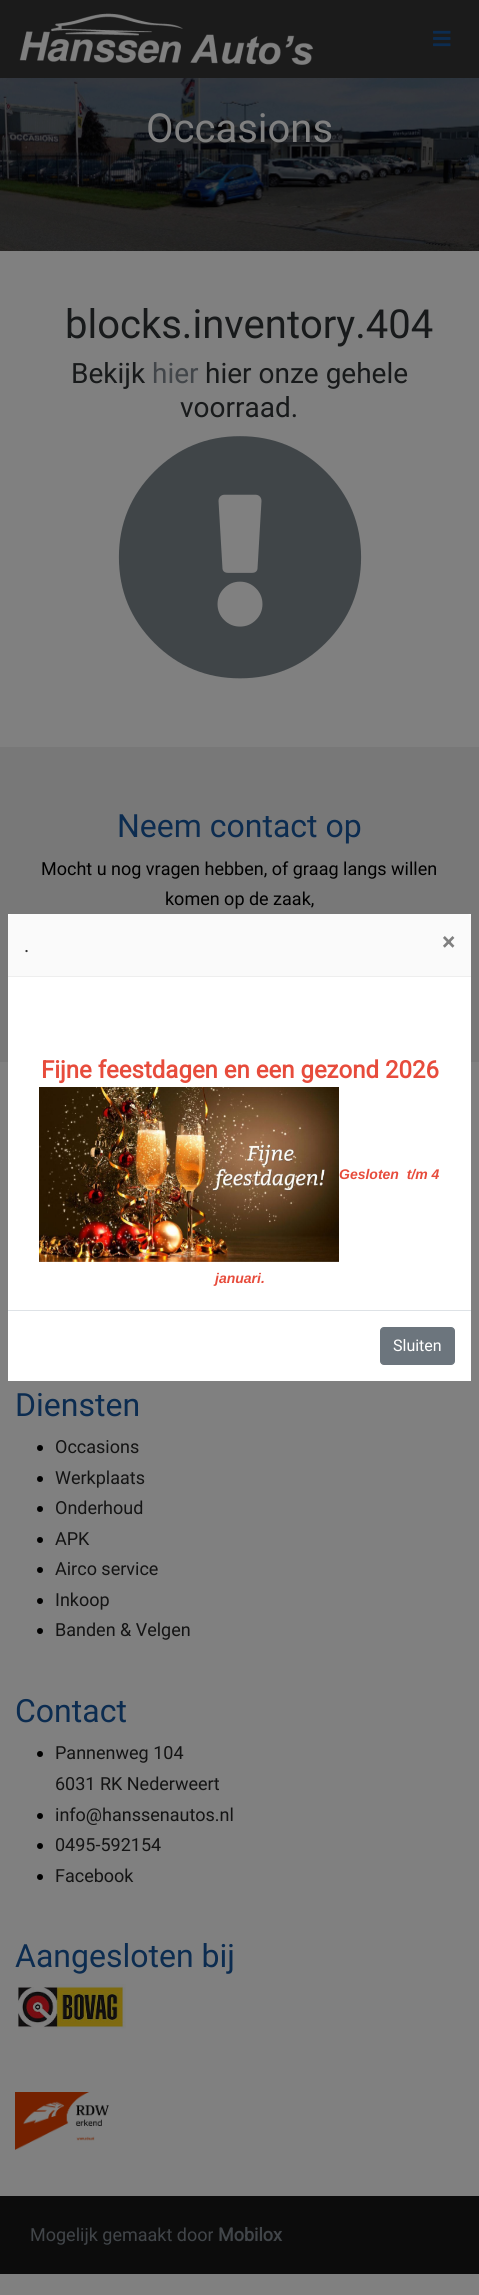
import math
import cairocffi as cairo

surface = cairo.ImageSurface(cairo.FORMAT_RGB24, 479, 2295)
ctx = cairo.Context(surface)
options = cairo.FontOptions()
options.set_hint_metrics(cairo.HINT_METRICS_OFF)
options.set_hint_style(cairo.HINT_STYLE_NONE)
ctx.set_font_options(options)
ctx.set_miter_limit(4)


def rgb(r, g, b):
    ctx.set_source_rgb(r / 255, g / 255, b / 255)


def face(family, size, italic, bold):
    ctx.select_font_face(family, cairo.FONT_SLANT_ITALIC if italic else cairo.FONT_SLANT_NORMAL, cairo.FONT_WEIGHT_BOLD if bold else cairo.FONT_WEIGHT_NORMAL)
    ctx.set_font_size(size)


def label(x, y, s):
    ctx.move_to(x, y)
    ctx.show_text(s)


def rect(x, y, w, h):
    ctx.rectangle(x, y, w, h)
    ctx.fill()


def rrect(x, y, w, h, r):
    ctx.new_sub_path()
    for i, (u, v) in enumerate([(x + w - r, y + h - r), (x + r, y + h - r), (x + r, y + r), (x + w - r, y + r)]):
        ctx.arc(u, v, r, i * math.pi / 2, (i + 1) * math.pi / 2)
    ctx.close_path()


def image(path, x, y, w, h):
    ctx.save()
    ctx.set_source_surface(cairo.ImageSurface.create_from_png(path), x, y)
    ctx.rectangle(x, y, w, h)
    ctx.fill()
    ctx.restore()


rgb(128, 128, 128)
ctx.paint()
rgb(27, 27, 27)
rect(0, 0, 479, 78)
image('image0.png', 19, 13, 295, 52)
image('image1.png', 433, 30, 18, 17)
image('image2.png', 0, 78, 479, 173)
face('Roboto', 40, 0, 0)
rgb(128, 128, 128)
label(146, 142, 'Occasions')
rgb(24, 26, 27)
label(65, 338, 'blocks.inventory.404')
face('Roboto', 28, 0, 0)
label(71, 383, 'Bekijk')
rgb(65, 69, 73)
label(152, 383, 'hier')
rgb(24, 26, 27)
label(205, 383, 'hier onze gehele')
label(180, 417, 'voorraad.')
image('image3.png', 118, 436, 244, 243)
rgb(120, 120, 120)
rect(0, 747, 479, 315)
face('Roboto', 32, 0, 0)
rgb(12, 44, 80)
label(117, 837, 'Neem contact op')
face('Roboto', 18, 0, 0)
rgb(0, 0, 0)
label(41, 875, 'Mocht u nog vragen hebben, of graag langs willen')
label(165, 905, 'komen op de zaak,')
rgb(255, 255, 255)
rect(8, 914, 463, 467)
rgb(250, 250, 250)
ctx.new_path()
ctx.move_to(12, 914)
ctx.line_to(467, 914)
ctx.curve_to(469, 914, 471, 916, 471, 918)
ctx.line_to(471, 977)
ctx.line_to(8, 977)
ctx.line_to(8, 918)
ctx.curve_to(8, 916, 10, 914, 12, 914)
ctx.close_path()
ctx.fill()
rgb(238, 238, 238)
rect(8, 976, 463, 1)
face('Roboto', 24, 0, 1)
rgb(128, 128, 128)
label(442, 950, '×')
face('Roboto', 20, 0, 0)
rgb(53, 53, 53)
label(24, 952, '.')
face('Roboto', 24, 0, 1)
rgb(231, 76, 60)
label(41, 1078, 'Fijne feestdagen en een gezond 2026')
image('image4.png', 39, 1087, 300, 175)
face('Liberation Sans', 14, 1, 1)
label(339, 1179, 'Gesloten  t/m 4')
label(215, 1283, 'januari.')
rgb(222, 226, 230)
rect(8, 1310, 463, 1)
rgb(108, 117, 125)
rrect(380.5, 1327.5, 74, 37, 3.5)
ctx.fill_preserve()
ctx.set_line_width(1)
ctx.stroke()
face('Roboto', 16, 0, 0)
rgb(255, 255, 255)
label(393, 1351, 'Sluiten')
face('Roboto', 32, 0, 0)
rgb(12, 44, 80)
label(15, 1416, 'Diensten')
rgb(0, 0, 0)
ctx.new_path()
ctx.arc(40, 1448, 3, 0, 2 * math.pi)
ctx.fill()
face('Roboto', 18, 0, 0)
rgb(20, 20, 20)
label(55, 1453, 'Occasions')
rgb(0, 0, 0)
ctx.new_path()
ctx.arc(40, 1479, 3, 0, 2 * math.pi)
ctx.fill()
rgb(20, 20, 20)
label(55, 1484, 'Werkplaats')
rgb(0, 0, 0)
ctx.new_path()
ctx.arc(40, 1509, 3, 0, 2 * math.pi)
ctx.fill()
rgb(20, 20, 20)
label(55, 1514, 'Onderhoud')
rgb(0, 0, 0)
ctx.new_path()
ctx.arc(40, 1540, 3, 0, 2 * math.pi)
ctx.fill()
rgb(20, 20, 20)
label(55, 1545, 'APK')
rgb(0, 0, 0)
ctx.new_path()
ctx.arc(40, 1570, 3, 0, 2 * math.pi)
ctx.fill()
rgb(20, 20, 20)
label(55, 1575, 'Airco service')
rgb(0, 0, 0)
ctx.new_path()
ctx.arc(40, 1601, 3, 0, 2 * math.pi)
ctx.fill()
rgb(20, 20, 20)
label(55, 1606, 'Inkoop')
rgb(0, 0, 0)
ctx.new_path()
ctx.arc(40, 1631, 3, 0, 2 * math.pi)
ctx.fill()
rgb(20, 20, 20)
label(55, 1636, 'Banden & Velgen')
face('Roboto', 32, 0, 0)
rgb(12, 44, 80)
label(15, 1722, 'Contact')
rgb(0, 0, 0)
ctx.new_path()
ctx.arc(40, 1754, 3, 0, 2 * math.pi)
ctx.fill()
face('Roboto', 18, 0, 0)
rgb(20, 20, 20)
label(55, 1759, 'Pannenweg 104')
label(55, 1790, '6031 RK Nederweert')
rgb(0, 0, 0)
ctx.new_path()
ctx.arc(40, 1816, 3, 0, 2 * math.pi)
ctx.fill()
rgb(20, 20, 20)
label(55, 1821, 'info@hanssenautos.nl')
rgb(0, 0, 0)
ctx.new_path()
ctx.arc(40, 1846, 3, 0, 2 * math.pi)
ctx.fill()
rgb(20, 20, 20)
label(55, 1851, '0495-592154')
rgb(0, 0, 0)
ctx.new_path()
ctx.arc(40, 1877, 3, 0, 2 * math.pi)
ctx.fill()
rgb(20, 20, 20)
label(55, 1882, 'Facebook')
face('Roboto', 32, 0, 0)
rgb(12, 44, 80)
label(15, 1967, 'Aangesloten bij')
image('image5.png', 18, 1984, 108, 45)
image('image6.png', 15, 2092, 94, 58)
rgb(12, 12, 12)
rect(0, 2196, 479, 78)
face('Roboto', 18, 0, 0)
rgb(65, 69, 73)
label(30, 2241, 'Mogelijk gemaakt door')
face('Roboto', 18, 0, 1)
label(218, 2241, 'Mobilox')
surface.write_to_png('render.png')
